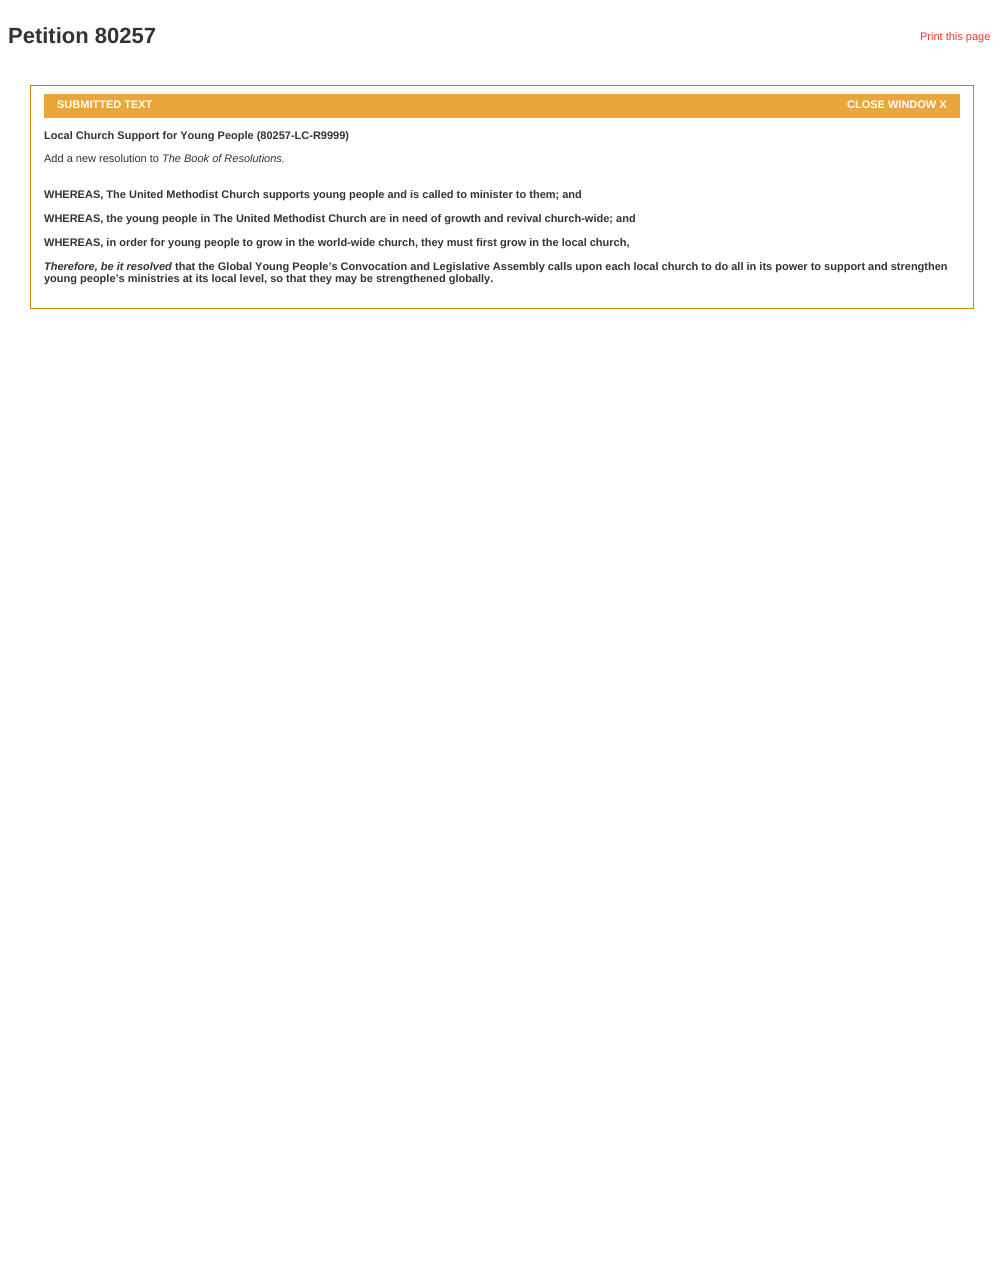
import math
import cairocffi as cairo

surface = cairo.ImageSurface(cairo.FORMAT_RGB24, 1002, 1267)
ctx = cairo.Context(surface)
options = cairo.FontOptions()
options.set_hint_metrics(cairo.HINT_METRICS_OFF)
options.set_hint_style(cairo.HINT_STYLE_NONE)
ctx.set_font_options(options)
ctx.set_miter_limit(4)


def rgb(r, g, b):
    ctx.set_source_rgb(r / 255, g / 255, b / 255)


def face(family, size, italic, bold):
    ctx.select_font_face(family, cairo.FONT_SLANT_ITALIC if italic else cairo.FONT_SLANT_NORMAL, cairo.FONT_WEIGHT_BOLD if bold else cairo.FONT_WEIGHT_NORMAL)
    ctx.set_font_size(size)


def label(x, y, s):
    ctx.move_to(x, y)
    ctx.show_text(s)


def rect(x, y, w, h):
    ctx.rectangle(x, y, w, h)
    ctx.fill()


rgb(255, 255, 255)
ctx.paint()
face('Liberation Sans', 22, 0, 1)
rgb(51, 51, 51)
label(8, 43, 'Petition 80257')
face('Liberation Sans', 11, 0, 0)
rgb(238, 57, 35)
label(920, 40, 'Print this page')
ctx.rectangle(30.5, 85.5, 943, 223)
rgb(211, 130, 0)
ctx.set_line_width(1)
ctx.stroke()
rgb(234, 166, 59)
rect(44, 94, 916, 24)
face('Liberation Sans', 11, 0, 1)
rgb(255, 255, 255)
label(57, 108, 'SUBMITTED TEXT')
label(847, 108, 'CLOSE WINDOW X')
rgb(51, 51, 51)
label(44, 139, 'Local Church Support for Young People (80257-LC-R9999)')
face('Liberation Sans', 11, 0, 0)
label(44, 162, 'Add a new resolution to')
face('Liberation Sans', 11, 1, 0)
label(162, 162, 'The Book of Resolutions.')
face('Liberation Sans', 11, 0, 1)
label(44, 198, 'WHEREAS, The United Methodist Church supports young people and is called to minister to them; and')
label(44, 222, 'WHEREAS, the young people in The United Methodist Church are in need of growth and revival church-wide; and')
label(44, 246, 'WHEREAS, in order for young people to grow in the world-wide church, they must first grow in the local church,')
face('Liberation Sans', 11, 1, 1)
label(44, 270, 'Therefore, be it resolved')
face('Liberation Sans', 11, 0, 1)
label(175, 270, 'that the Global Young People’s Convocation and Legislative Assembly calls upon each local church to do all in its power to support and strengthen')
label(44, 282, 'young people’s ministries at its local level, so that they may be strengthened globally.')
surface.write_to_png('render.png')
